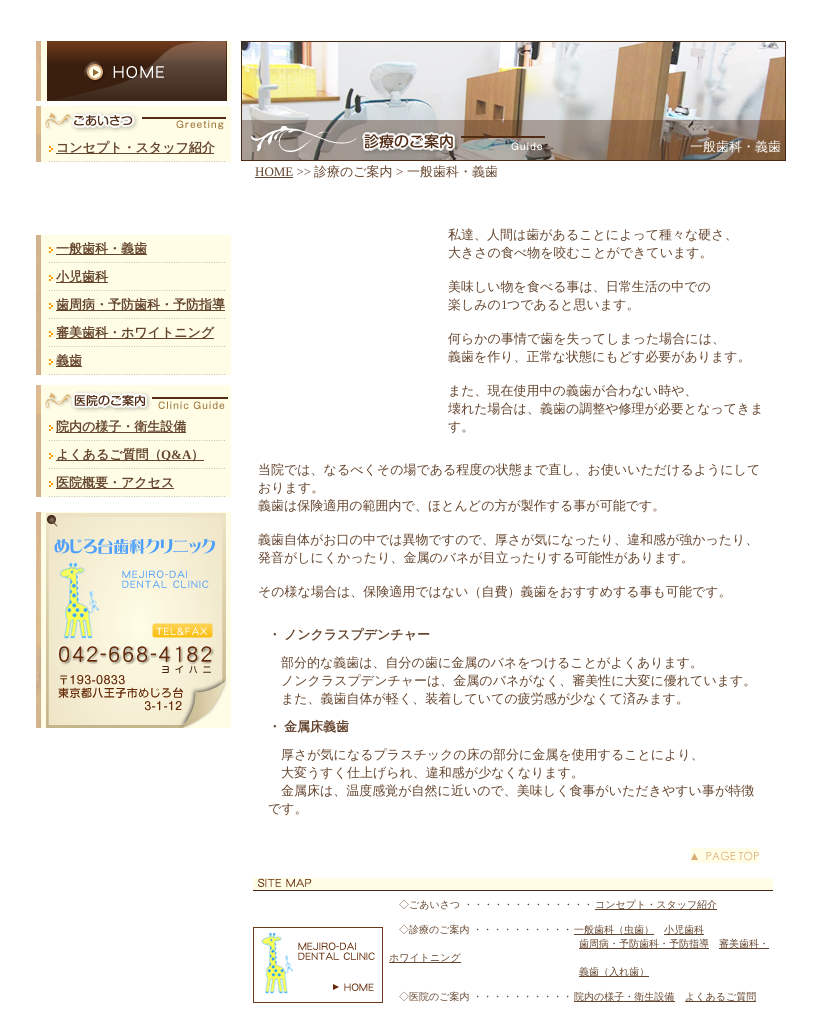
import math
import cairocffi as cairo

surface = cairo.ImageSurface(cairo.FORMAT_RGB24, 831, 1010)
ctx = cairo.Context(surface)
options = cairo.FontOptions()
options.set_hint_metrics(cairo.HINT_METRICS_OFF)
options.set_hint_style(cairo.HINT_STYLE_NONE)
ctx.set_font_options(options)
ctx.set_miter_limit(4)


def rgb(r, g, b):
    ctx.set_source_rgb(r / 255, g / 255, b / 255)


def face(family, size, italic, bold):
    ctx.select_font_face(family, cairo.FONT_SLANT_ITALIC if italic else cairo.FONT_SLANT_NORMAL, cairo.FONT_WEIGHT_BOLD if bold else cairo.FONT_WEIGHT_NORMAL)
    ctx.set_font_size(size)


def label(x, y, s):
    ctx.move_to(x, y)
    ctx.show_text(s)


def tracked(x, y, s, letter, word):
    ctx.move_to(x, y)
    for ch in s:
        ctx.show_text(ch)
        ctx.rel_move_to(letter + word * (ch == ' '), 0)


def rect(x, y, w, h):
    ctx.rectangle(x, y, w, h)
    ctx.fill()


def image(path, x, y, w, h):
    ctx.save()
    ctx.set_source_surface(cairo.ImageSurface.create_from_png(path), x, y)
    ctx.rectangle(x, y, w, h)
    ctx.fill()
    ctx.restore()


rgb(255, 255, 255)
ctx.paint()
image('image0.png', 36, 41, 195, 60)
image('image1.png', 36, 106, 195, 28)
image('image2.png', 55, 134, 176, 28)
image('image3.png', 36, 134, 19, 28)
rgb(101, 69, 46)
rect(56, 153, 158, 1)
face('WenQuanYi Zen Hei', 13, 0, 1)
label(56, 152, 'コンセプト・スタッフ紹介')
image('image4.png', 55, 235, 176, 140)
image('image3.png', 36, 235, 19, 28)
rect(56, 254, 91, 1)
label(56, 253, '一般歯科・義歯')
image('image3.png', 36, 263, 19, 28)
rect(56, 282, 52, 1)
label(56, 281, '小児歯科')
image('image3.png', 36, 291, 19, 28)
rect(56, 310, 169, 1)
label(56, 309, '歯周病・予防歯科・予防指導')
image('image3.png', 36, 319, 19, 28)
rect(56, 338, 158, 1)
label(56, 337, '審美歯科・ホワイトニング')
image('image3.png', 36, 347, 19, 28)
rect(56, 366, 26, 1)
label(56, 365, '義歯')
image('image5.png', 36, 385, 195, 28)
image('image6.png', 55, 413, 176, 84)
image('image3.png', 36, 413, 19, 28)
rect(56, 432, 130, 1)
label(56, 431, '院内の様子・衛生設備')
image('image3.png', 36, 441, 19, 28)
rect(56, 460, 148, 1)
label(56, 459, 'よくあるご質問（')
face('Liberation Serif', 13, 0, 1)
label(161, 459, 'Q&A')
face('WenQuanYi Zen Hei', 13, 0, 1)
label(191, 459, '）')
image('image3.png', 36, 469, 19, 28)
rect(56, 488, 118, 1)
label(56, 487, '医院概要・アクセス')
image('image7.png', 36, 512, 195, 216)
image('image8.png', 241, 41, 545, 120)
face('WenQuanYi Zen Hei Medium', 13, 0, 0)
rgb(255, 255, 255)
label(690, 151, '一般歯科・義歯')
face('Liberation Serif', 13, 0, 0)
rgb(101, 69, 46)
label(255, 176, 'HOME >>')
rect(255, 177, 38, 1)
face('WenQuanYi Zen Hei Medium', 13, 0, 0)
label(314, 176, '診療のご案内')
face('Liberation Serif', 13, 0, 0)
label(396, 176, '>')
face('WenQuanYi Zen Hei Medium', 13, 0, 0)
label(407, 176, '一般歯科・義歯')
label(448, 239, '私達、人間は歯があることによって種々な硬さ、')
label(448, 257, '大きさの食べ物を咬むことができています。')
label(448, 291, '美味しい物を食べる事は、日常生活の中での')
label(448, 309, '楽しみの')
face('Liberation Serif', 13, 0, 0)
label(501, 309, '1')
face('WenQuanYi Zen Hei Medium', 13, 0, 0)
label(507, 309, 'つであると思います。')
label(448, 343, '何らかの事情で歯を失ってしまった場合には、')
label(448, 361, '義歯を作り、正常な状態にもどす必要があります。')
label(448, 395, 'また、現在使用中の義歯が合わない時や、')
label(448, 413, '壊れた場合は、義歯の調整や修理が必要となってきま')
label(448, 431, 'す。')
label(258, 474, '当院では、なるべくその場である程度の状態まで直し、お使いいただけるようにして')
label(258, 492, 'おります。')
label(258, 510, '義歯は保険適用の範囲内で、ほとんどの方が製作する事が可能です。')
label(258, 544, '義歯自体がお口の中では異物ですので、厚さが気になったり、違和感が強かったり、')
label(258, 562, '発音がしにくかったり、金属のバネが目立ったりする可能性があります。')
label(258, 596, 'その様な場合は、保険適用ではない（自費）義歯をおすすめする事も可能です。')
face('WenQuanYi Zen Hei', 13, 0, 1)
tracked(268, 639, '・ ノンクラスプデンチャー', 0, -1)
face('WenQuanYi Zen Hei Medium', 13, 0, 0)
label(281, 667, '部分的な義歯は、自分の歯に金属のバネをつけることがよくあります。')
label(281, 685, 'ノンクラスプデンチャーは、金属のバネがなく、審美性に大変に優れています。')
label(281, 703, 'また、義歯自体が軽く、装着していての疲労感が少なくて済みます。')
face('WenQuanYi Zen Hei', 13, 0, 1)
tracked(268, 731, '・ 金属床義歯', 0, -1)
face('WenQuanYi Zen Hei Medium', 13, 0, 0)
label(281, 759, '厚さが気になるプラスチックの床の部分に金属を使用することにより、')
label(281, 777, '大変うすく仕上げられ、違和感が少なくなります。')
label(281, 795, '金属床は、温度感覚が自然に近いので、美味しく食事がいただきやすい事が特徴')
label(268, 813, 'です。')
image('image9.png', 691, 848, 68, 15)
image('image10.png', 253, 878, 520, 13)
image('image11.png', 253, 927, 130, 76)
face('WenQuanYi Zen Hei Medium', 10, 0, 0)
label(399, 908, '◇ごあいさつ ・・・・・・・・・・・・・')
rect(595, 909, 122, 1)
label(595, 908, 'コンセプト・スタッフ紹介')
label(399, 933, '◇診療のご案内 ・・・・・・・・・・')
rect(574, 934, 80, 1)
label(574, 933, '一般歯科（虫歯）')
rect(664, 934, 40, 1)
label(664, 933, '小児歯科')
rect(579, 948, 130, 1)
label(579, 947, '歯周病・予防歯科・予防指導')
rect(719, 948, 50, 1)
label(719, 947, '審美歯科・')
rect(389, 962, 72, 1)
label(389, 961, 'ホワイトニング')
rect(579, 976, 70, 1)
label(579, 975, '義歯（入れ歯）')
label(399, 1000, '◇医院のご案内 ・・・・・・・・・・')
rect(574, 1001, 101, 1)
label(574, 1000, '院内の様子・衛生設備')
rect(685, 1001, 71, 1)
label(685, 1000, 'よくあるご質問')
surface.write_to_png('render.png')
